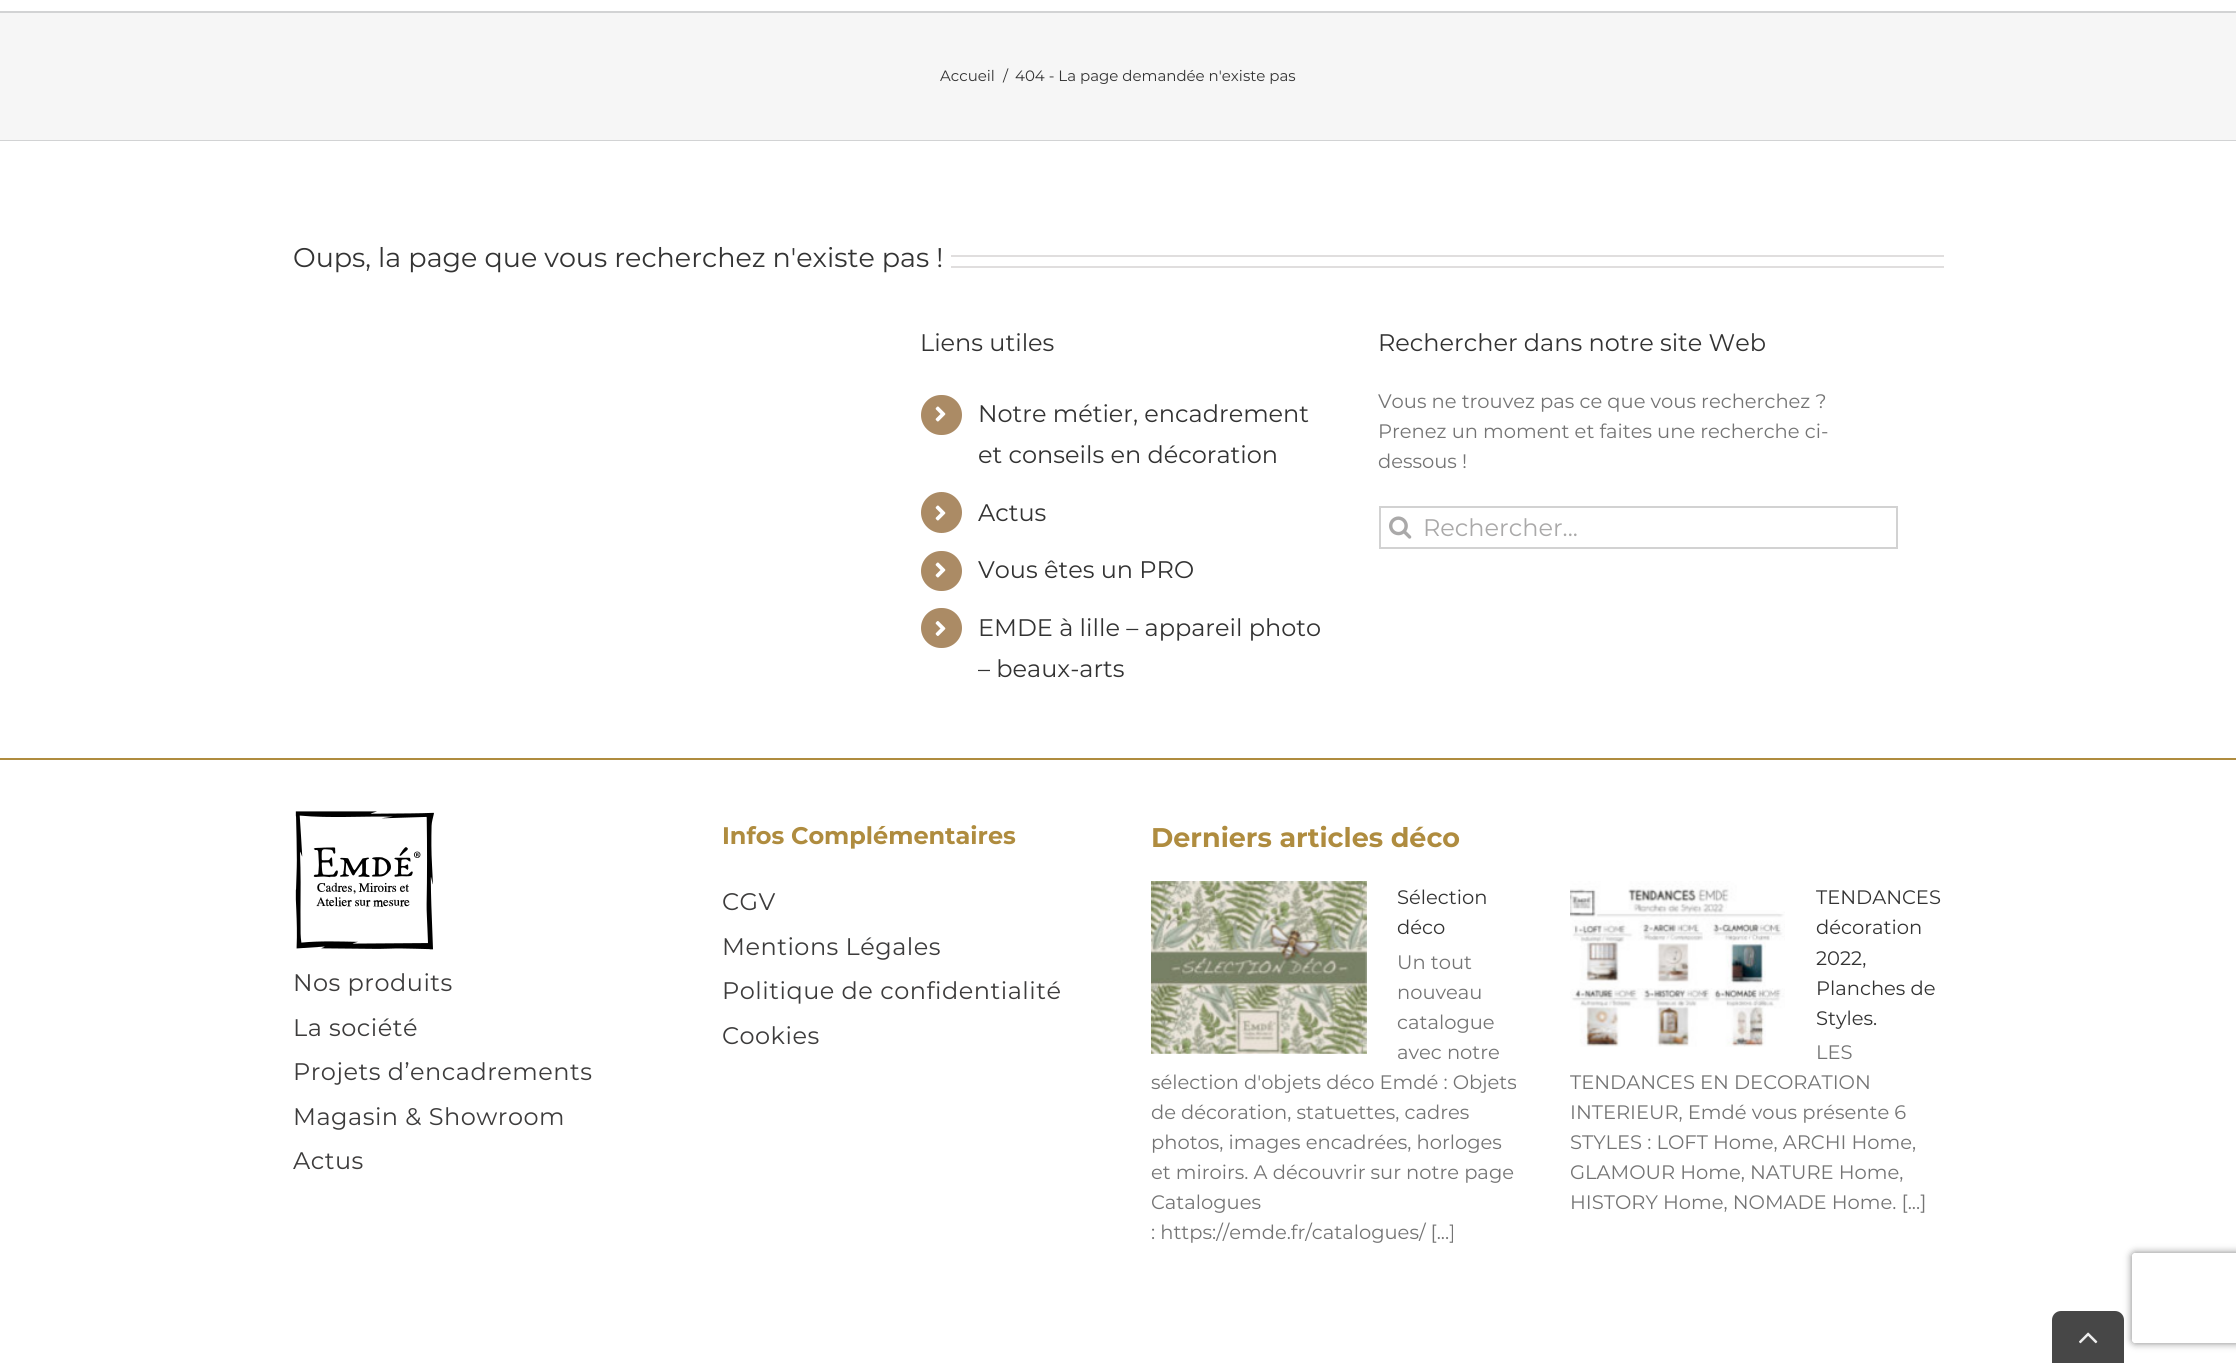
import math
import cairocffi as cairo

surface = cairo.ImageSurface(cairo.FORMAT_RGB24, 2236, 1363)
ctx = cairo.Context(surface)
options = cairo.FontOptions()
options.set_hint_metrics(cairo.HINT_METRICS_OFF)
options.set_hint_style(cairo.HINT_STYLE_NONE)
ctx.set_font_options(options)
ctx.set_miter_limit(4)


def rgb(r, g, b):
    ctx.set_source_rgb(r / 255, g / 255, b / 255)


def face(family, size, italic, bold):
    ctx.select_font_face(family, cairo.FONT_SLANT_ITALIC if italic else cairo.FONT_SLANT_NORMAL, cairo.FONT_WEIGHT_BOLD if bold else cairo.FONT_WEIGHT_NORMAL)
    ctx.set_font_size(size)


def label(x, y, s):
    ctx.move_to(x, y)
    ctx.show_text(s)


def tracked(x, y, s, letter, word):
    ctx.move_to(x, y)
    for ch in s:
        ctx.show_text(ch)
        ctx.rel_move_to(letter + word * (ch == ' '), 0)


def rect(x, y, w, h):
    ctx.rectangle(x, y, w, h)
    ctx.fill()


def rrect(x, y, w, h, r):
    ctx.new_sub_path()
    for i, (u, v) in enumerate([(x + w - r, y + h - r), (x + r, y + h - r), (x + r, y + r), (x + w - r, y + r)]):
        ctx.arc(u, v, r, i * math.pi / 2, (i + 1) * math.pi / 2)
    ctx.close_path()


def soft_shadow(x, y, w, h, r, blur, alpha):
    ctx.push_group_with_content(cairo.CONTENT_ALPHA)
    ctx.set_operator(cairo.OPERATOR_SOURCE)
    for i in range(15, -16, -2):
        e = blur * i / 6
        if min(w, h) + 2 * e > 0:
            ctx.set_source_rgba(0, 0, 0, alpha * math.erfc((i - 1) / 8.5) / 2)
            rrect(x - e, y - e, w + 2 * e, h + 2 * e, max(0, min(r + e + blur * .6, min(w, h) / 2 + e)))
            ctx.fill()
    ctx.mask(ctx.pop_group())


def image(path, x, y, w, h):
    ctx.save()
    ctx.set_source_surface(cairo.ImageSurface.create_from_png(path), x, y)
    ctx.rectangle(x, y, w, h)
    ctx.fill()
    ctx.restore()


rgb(255, 255, 255)
ctx.paint()
rgb(246, 246, 246)
rect(0, 13, 2236, 127)
rgb(210, 211, 212)
rect(0, 11, 2236, 2)
rect(0, 140, 2236, 1)
face('Montserrat', 15, 0, 0)
rgb(51, 51, 51)
label(940, 81, 'Accueil')
label(1003, 81, '/')
label(1015, 81, '404 - La page demandée n\'existe pas')
face('Montserrat', 27, 0, 0)
label(293, 267, 'Oups, la page que vous recherchez n\'existe pas !')
rgb(224, 222, 222)
rect(951, 255, 993, 2)
rect(951, 266, 993, 2)
face('Montserrat', 24, 0, 0)
rgb(51, 51, 51)
label(920, 351, 'Liens utiles')
rgb(171, 139, 101)
rrect(921, 395, 41, 40, 20)
ctx.fill()
image('image0.png', 935, 406, 11, 16)
rgb(51, 51, 51)
label(978, 422, 'Notre métier, encadrement')
label(978, 463, 'et conseils en décoration')
rgb(171, 139, 101)
ctx.new_path()
ctx.arc(941.5, 512.5, 20.5, 0, 2 * math.pi)
ctx.fill()
image('image0.png', 935, 505, 11, 16)
rgb(51, 51, 51)
label(978, 521, 'Actus')
rgb(171, 139, 101)
rrect(921, 551, 41, 40, 20)
ctx.fill()
image('image0.png', 935, 562, 11, 16)
rgb(51, 51, 51)
label(978, 578, 'Vous êtes un PRO')
rgb(171, 139, 101)
rrect(921, 608, 41, 40, 20)
ctx.fill()
image('image1.png', 935, 621, 11, 15)
rgb(51, 51, 51)
label(978, 636, 'EMDE à lille – appareil photo')
label(978, 677, '– beaux-arts')
label(1378, 351, 'Rechercher dans notre site Web')
face('Montserrat', 19.5, 0, 0)
rgb(116, 116, 116)
label(1378, 408, 'Vous ne trouvez pas ce que vous recherchez ?')
label(1378, 438, 'Prenez un moment et faites une recherche ci-')
label(1378, 468, 'dessous !')
ctx.rectangle(1380, 507, 517, 41)
rgb(210, 210, 210)
ctx.stroke()
image('image2.png', 1389, 516, 23, 23)
face('Montserrat', 24, 0, 0)
rgb(170, 169, 169)
label(1423, 536, 'Rechercher...')
rgb(175, 140, 63)
rect(0, 758, 2236, 2)
image('image3.png', 295, 811, 139, 139)
rgb(61, 60, 60)
tracked(293, 991, 'Nos produits', 0.5, 0)
tracked(293, 1036, 'La société', 0.5, 0)
tracked(293, 1080, 'Projets d’encadrements', 0.5, 0)
tracked(293, 1125, 'Magasin & Showroom', 0.5, 0)
tracked(293, 1169, 'Actus', 0.5, 0)
face('Montserrat', 24, 0, 1)
rgb(175, 140, 63)
label(722, 844, 'Infos Complémentaires')
face('Montserrat', 24, 0, 0)
rgb(61, 60, 60)
tracked(722, 910, 'CGV', 0.5, 0)
tracked(722, 955, 'Mentions Légales', 0.5, 0)
tracked(722, 999, 'Politique de confidentialité', 0.5, 0)
tracked(722, 1044, 'Cookies', 0.5, 0)
face('Montserrat', 27, 0, 1)
rgb(175, 140, 63)
label(1151, 847, 'Derniers articles déco')
image('image4.png', 1151, 881, 216, 173)
face('Montserrat', 19.5, 0, 0)
rgb(51, 51, 51)
label(1397, 904, 'Sélection')
label(1397, 934, 'déco')
rgb(116, 116, 116)
label(1397, 969, 'Un tout')
label(1397, 999, 'nouveau')
label(1397, 1029, 'catalogue')
label(1397, 1059, 'avec notre')
label(1151, 1089, 'sélection d\'objets déco Emdé : Objets')
label(1151, 1119, 'de décoration, statuettes, cadres')
label(1151, 1149, 'photos, images encadrées, horloges')
label(1151, 1179, 'et miroirs. A découvrir sur notre page')
label(1151, 1209, 'Catalogues')
label(1151, 1239, ': https://emde.fr/catalogues/ [...]')
image('image5.png', 1570, 881, 215, 166)
rgb(51, 51, 51)
label(1816, 904, 'TENDANCES')
label(1816, 934, 'décoration')
label(1816, 965, '2022,')
label(1816, 995, 'Planches de')
label(1816, 1025, 'Styles.')
rgb(116, 116, 116)
label(1816, 1059, 'LES')
label(1570, 1089, 'TENDANCES EN DECORATION')
label(1570, 1119, 'INTERIEUR, Emdé vous présente 6')
label(1570, 1149, 'STYLES : LOFT Home, ARCHI Home,')
label(1570, 1179, 'GLAMOUR Home, NATURE Home,')
label(1570, 1209, 'HISTORY Home, NOMADE Home. [...]')
ctx.save()
ctx.set_fill_rule(cairo.FILL_RULE_EVEN_ODD)
ctx.new_path()
ctx.move_to(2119, 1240)
ctx.line_to(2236, 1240)
ctx.line_to(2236, 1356)
ctx.line_to(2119, 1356)
ctx.close_path()
ctx.move_to(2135, 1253)
ctx.line_to(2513, 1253)
ctx.curve_to(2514.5, 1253, 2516, 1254.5, 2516, 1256)
ctx.line_to(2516, 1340)
ctx.curve_to(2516, 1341.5, 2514.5, 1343, 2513, 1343)
ctx.line_to(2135, 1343)
ctx.curve_to(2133.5, 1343, 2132, 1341.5, 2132, 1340)
ctx.line_to(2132, 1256)
ctx.curve_to(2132, 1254.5, 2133.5, 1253, 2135, 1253)
ctx.close_path()
ctx.clip()
rgb(128, 128, 128)
soft_shadow(2132, 1253, 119, 90, 3, 4, 1)
ctx.restore()
rgb(71, 71, 71)
ctx.new_path()
ctx.move_to(2061, 1311)
ctx.line_to(2115, 1311)
ctx.curve_to(2120, 1311, 2124, 1315, 2124, 1320)
ctx.line_to(2124, 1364)
ctx.line_to(2052, 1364)
ctx.line_to(2052, 1320)
ctx.curve_to(2052, 1315, 2056, 1311, 2061, 1311)
ctx.close_path()
ctx.fill()
image('image6.png', 2079, 1332, 19, 12)
surface.write_to_png('render.png')
